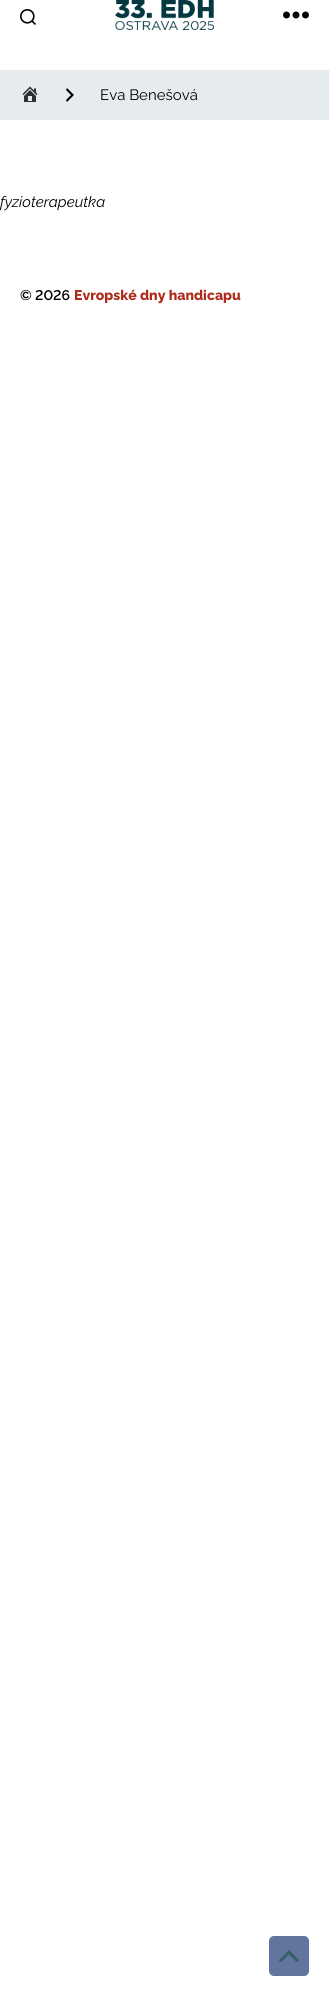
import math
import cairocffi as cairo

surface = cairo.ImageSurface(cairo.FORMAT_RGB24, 329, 1996)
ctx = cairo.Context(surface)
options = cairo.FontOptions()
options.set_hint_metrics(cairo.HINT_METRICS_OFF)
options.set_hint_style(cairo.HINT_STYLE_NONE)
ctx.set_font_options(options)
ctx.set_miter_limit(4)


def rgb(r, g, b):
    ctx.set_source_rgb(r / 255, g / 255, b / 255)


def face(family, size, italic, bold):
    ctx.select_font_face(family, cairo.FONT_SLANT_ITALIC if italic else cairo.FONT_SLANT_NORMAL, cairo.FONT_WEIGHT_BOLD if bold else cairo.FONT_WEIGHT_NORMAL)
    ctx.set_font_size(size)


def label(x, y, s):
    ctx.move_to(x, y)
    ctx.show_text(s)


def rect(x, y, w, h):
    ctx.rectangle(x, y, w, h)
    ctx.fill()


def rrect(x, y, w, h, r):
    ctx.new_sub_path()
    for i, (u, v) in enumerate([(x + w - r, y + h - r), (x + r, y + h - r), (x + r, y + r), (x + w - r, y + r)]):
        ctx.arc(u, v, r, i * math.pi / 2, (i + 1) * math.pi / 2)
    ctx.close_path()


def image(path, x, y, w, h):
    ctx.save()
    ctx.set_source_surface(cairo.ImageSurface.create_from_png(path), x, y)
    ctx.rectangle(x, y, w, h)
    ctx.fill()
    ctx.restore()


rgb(255, 255, 255)
ctx.paint()
image('image0.png', 20, 9, 16, 16)
image('image1.png', 114, 0, 100, 30)
image('image2.png', 283, 11, 26, 8)
rgb(230, 235, 237)
rect(0, 70, 329, 50)
image('image3.png', 22, 86, 16, 16)
image('image4.png', 66, 88, 8, 14)
face('Raleway', 15, 0, 0)
rgb(0, 0, 0)
label(100, 100, 'Eva Benešová')
face('Raleway', 15, 1, 0)
label(0, 207, 'fyzioterapeutka')
face('Raleway SemiBold', 14, 0, 0)
label(20, 300, '©')
face('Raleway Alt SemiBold', 14, 0, 0)
label(35, 300, '2026')
face('Raleway ExtraBold', 14, 0, 0)
rgb(175, 44, 28)
label(74, 300, 'Evropské dny handicapu')
rgb(98, 117, 158)
rrect(269, 1936, 40, 40, 5)
ctx.fill()
rgb(53, 97, 102)
ctx.new_path()
ctx.move_to(296.5, 1962)
ctx.line_to(289, 1954.5)
ctx.line_to(281.5, 1962)
ctx.line_to(278.5, 1960.5)
ctx.line_to(289, 1950)
ctx.line_to(299.5, 1960.5)
ctx.close_path()
ctx.fill()
surface.write_to_png('render.png')
